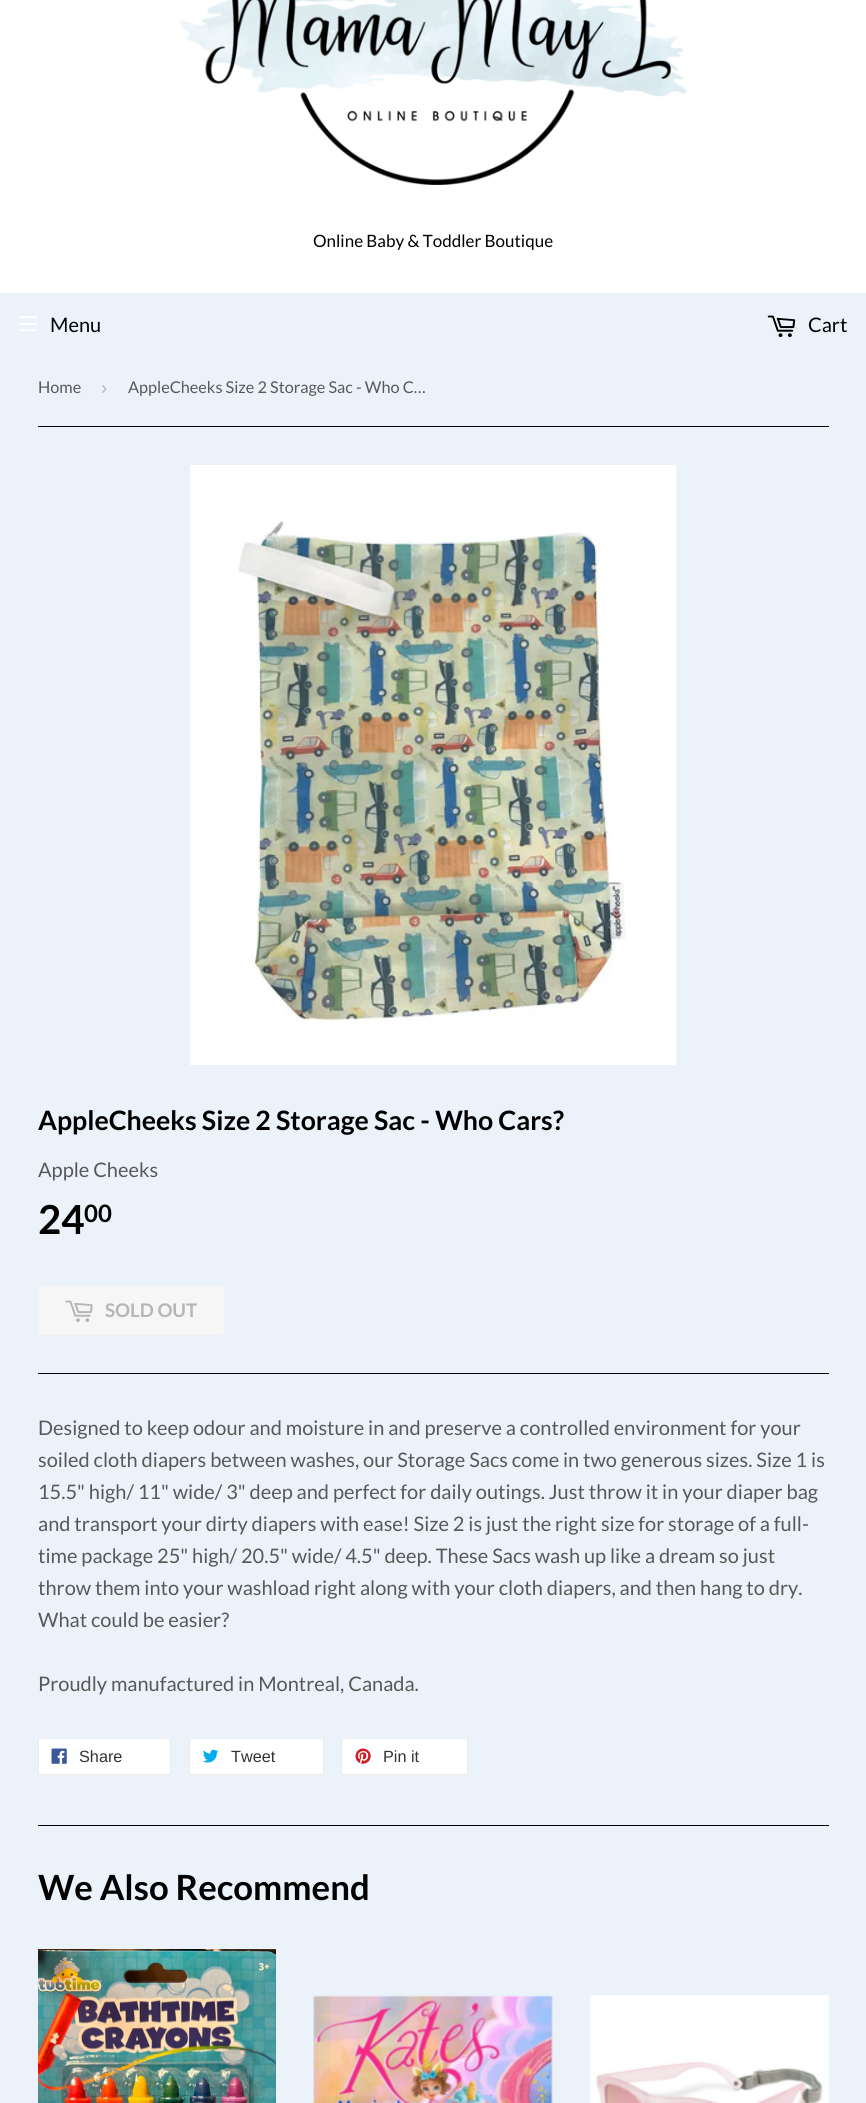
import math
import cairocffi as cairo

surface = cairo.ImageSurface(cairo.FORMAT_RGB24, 866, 2103)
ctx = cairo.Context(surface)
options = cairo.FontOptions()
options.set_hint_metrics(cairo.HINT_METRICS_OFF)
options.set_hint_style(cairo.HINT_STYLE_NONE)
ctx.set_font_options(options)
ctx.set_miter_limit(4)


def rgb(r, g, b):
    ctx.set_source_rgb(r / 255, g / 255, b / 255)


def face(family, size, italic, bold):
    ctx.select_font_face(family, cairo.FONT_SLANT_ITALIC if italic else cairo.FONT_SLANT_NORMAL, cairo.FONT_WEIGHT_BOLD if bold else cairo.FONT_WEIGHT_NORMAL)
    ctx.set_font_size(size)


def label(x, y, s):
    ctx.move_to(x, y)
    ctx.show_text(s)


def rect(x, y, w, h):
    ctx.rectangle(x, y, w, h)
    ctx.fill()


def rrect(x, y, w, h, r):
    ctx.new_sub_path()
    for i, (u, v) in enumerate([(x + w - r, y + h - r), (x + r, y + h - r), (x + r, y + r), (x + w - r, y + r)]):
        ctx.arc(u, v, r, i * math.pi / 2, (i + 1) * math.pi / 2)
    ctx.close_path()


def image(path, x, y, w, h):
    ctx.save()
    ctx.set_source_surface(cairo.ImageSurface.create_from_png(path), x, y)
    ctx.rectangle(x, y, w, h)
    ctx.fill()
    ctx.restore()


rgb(235, 242, 249)
ctx.paint()
rgb(255, 255, 255)
rect(0, 0, 866, 293)
image('image0.png', 180, 0, 507, 185)
face('Lato', 17, 0, 0)
rgb(0, 0, 0)
label(313, 247, 'Online Baby & Toddler Boutique')
image('image1.png', 19, 316, 19, 15)
face('Lato', 20, 0, 0)
label(50, 332, 'Menu')
image('image2.png', 767, 315, 29, 23)
label(808, 332, 'Cart')
rect(38, 426, 791, 1)
face('Lato', 16.25, 0, 0)
rgb(88, 88, 88)
label(38, 393, 'Home')
face('Liberation Sans', 18.75, 0, 0)
rgb(182, 182, 182)
label(101, 394, '›')
face('Lato', 16.25, 0, 0)
rgb(88, 88, 88)
label(128, 393, 'AppleCheeks Size 2 Storage Sac - Who C…')
image('image3.png', 190, 465, 487, 600)
face('Lato', 26.7, 0, 1)
rgb(0, 0, 0)
label(38, 1130, 'AppleCheeks Size 2 Storage Sac - Who Cars?')
face('Lato', 20, 0, 0)
rgb(88, 88, 88)
label(38, 1177, 'Apple Cheeks')
face('Lato', 40, 0, 1)
rgb(0, 0, 0)
label(38, 1234, '24')
face('Lato', 24, 0, 1)
label(84, 1222, '00')
rgb(246, 246, 246)
rrect(38, 1286, 186, 49, 2.5)
ctx.fill()
image('image4.png', 65, 1300, 28, 22)
face('Lato', 18.75, 0, 1)
rgb(182, 182, 182)
label(105, 1317, 'SOLD OUT')
rgb(0, 0, 0)
rect(38, 1373, 791, 1)
face('Lato', 20, 0, 0)
rgb(88, 88, 88)
label(38, 1435, 'Designed to keep odour and moisture in and preserve a controlled environment for your')
label(38, 1467, 'soiled cloth diapers between washes, our Storage Sacs come in two generous sizes. Size 1 is')
label(38, 1499, '15.5" high/ 11" wide/ 3" deep and perfect for daily outings. Just throw it in your diaper bag')
label(38, 1531, 'and transport your dirty diapers with ease! Size 2 is just the right size for storage of a full-')
label(38, 1563, 'time package 25" high/ 20.5" wide/ 4.5" deep. These Sacs wash up like a dream so just')
label(38, 1595, 'throw them into your washload right along with your cloth diapers, and then hang to dry.')
label(38, 1627, 'What could be easier?')
label(38, 1691, 'Proudly manufactured in Montreal, Canada.')
rgb(255, 255, 255)
rrect(38.5, 1738.5, 132, 36, 2)
ctx.fill_preserve()
rgb(236, 236, 236)
ctx.set_line_width(1)
ctx.stroke()
image('image5.png', 51, 1748, 16, 16)
face('Liberation Sans', 16.25, 0, 0)
rgb(51, 51, 51)
label(79, 1762, 'Share')
rgb(255, 255, 255)
rrect(189.5, 1738.5, 134, 36, 2)
ctx.fill_preserve()
rgb(236, 236, 236)
ctx.stroke()
image('image6.png', 203, 1749, 16, 14)
rgb(51, 51, 51)
label(231, 1762, 'Tweet')
rgb(255, 255, 255)
rrect(341.5, 1738.5, 126, 36, 2)
ctx.fill_preserve()
rgb(236, 236, 236)
ctx.stroke()
image('image7.png', 355, 1748, 16, 16)
rgb(51, 51, 51)
label(383, 1762, 'Pin it')
rgb(0, 0, 0)
rect(38, 1825, 791, 1)
face('Lato', 34.75, 0, 1)
label(38, 1900, 'We Also Recommend')
image('image8.png', 38, 1949, 238, 154)
image('image9.png', 313, 1995, 240, 108)
image('image10.png', 589, 1995, 241, 108)
surface.write_to_png('render.png')
